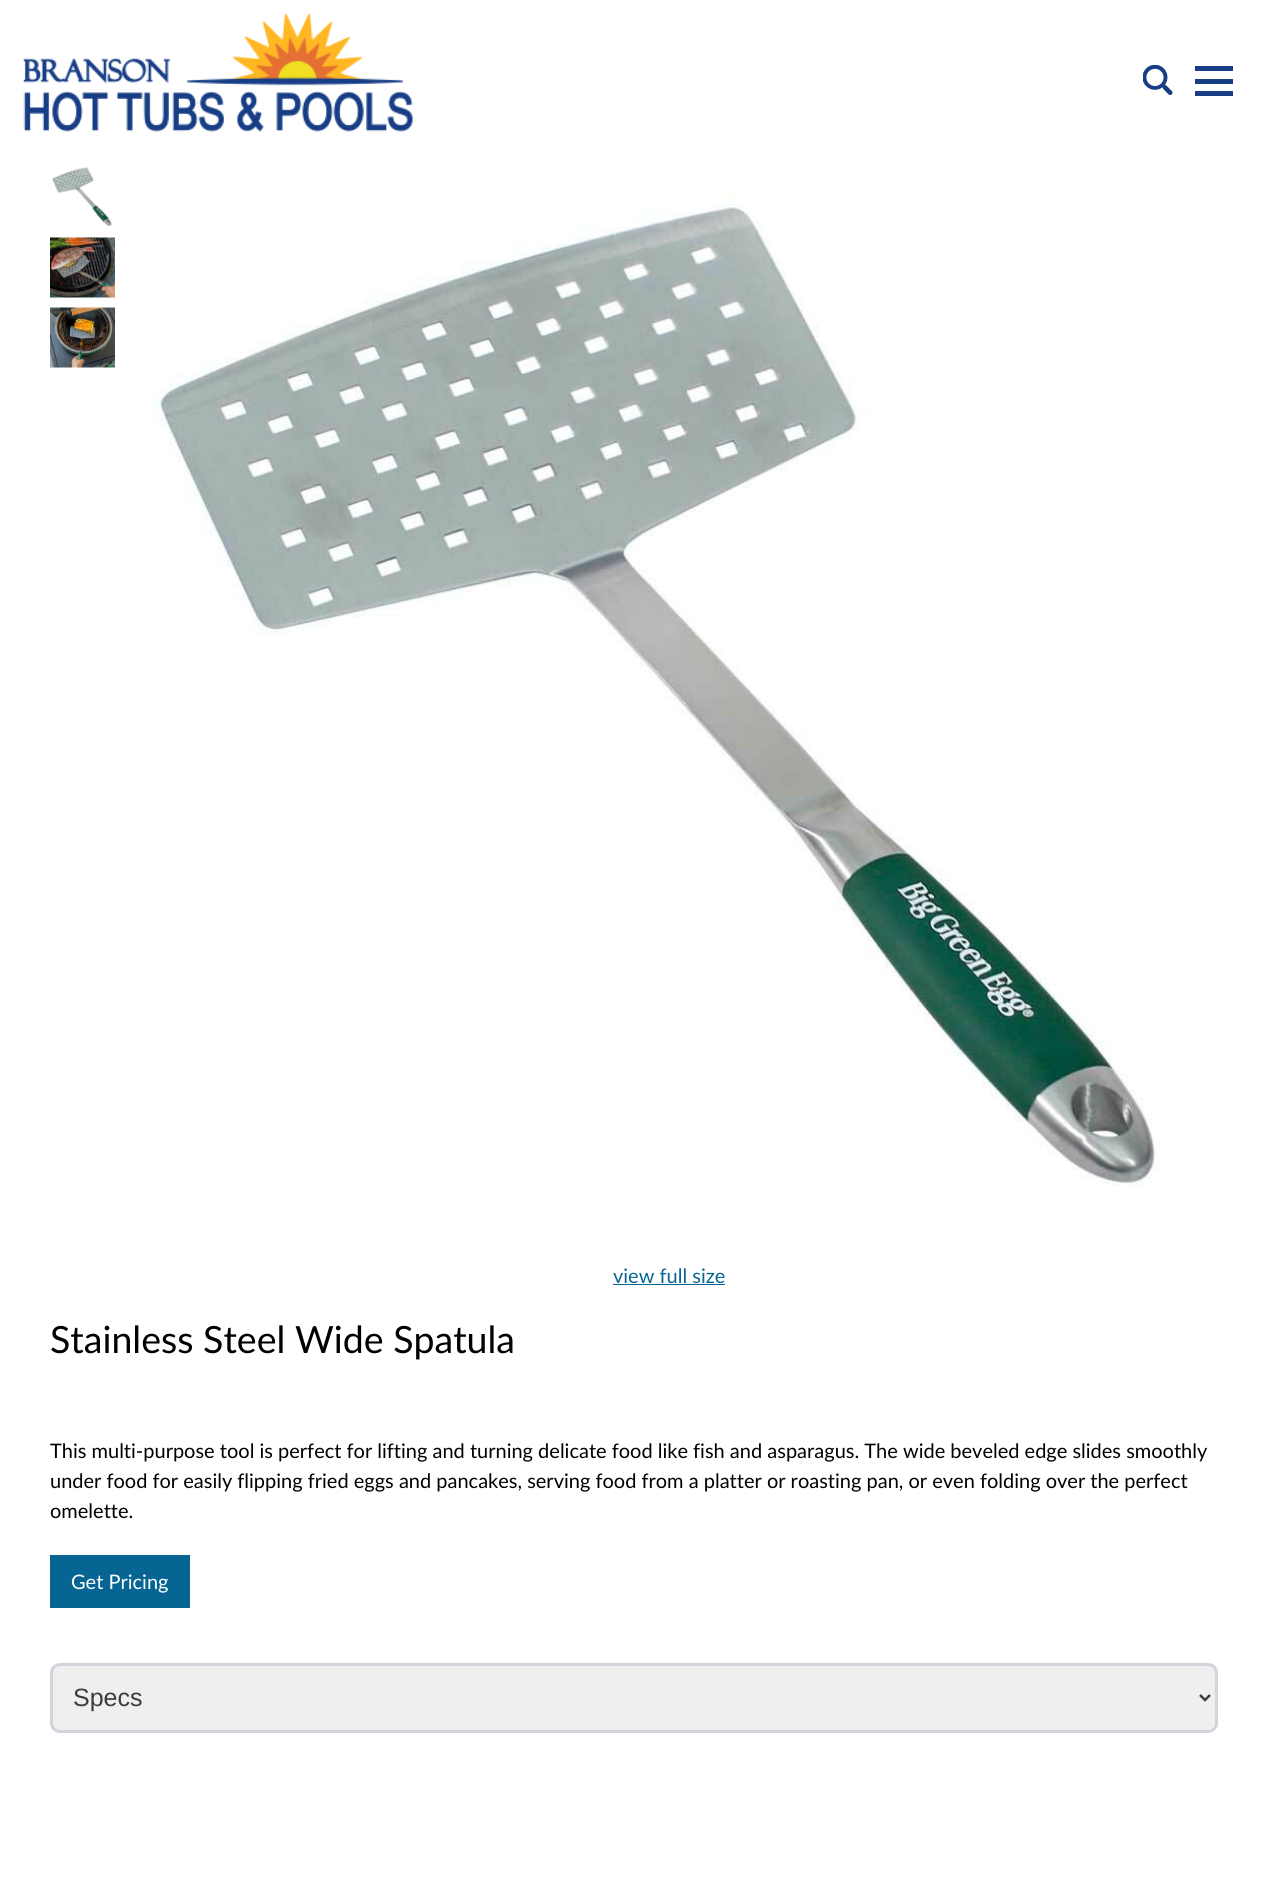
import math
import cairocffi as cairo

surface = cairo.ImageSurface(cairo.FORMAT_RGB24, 1267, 1897)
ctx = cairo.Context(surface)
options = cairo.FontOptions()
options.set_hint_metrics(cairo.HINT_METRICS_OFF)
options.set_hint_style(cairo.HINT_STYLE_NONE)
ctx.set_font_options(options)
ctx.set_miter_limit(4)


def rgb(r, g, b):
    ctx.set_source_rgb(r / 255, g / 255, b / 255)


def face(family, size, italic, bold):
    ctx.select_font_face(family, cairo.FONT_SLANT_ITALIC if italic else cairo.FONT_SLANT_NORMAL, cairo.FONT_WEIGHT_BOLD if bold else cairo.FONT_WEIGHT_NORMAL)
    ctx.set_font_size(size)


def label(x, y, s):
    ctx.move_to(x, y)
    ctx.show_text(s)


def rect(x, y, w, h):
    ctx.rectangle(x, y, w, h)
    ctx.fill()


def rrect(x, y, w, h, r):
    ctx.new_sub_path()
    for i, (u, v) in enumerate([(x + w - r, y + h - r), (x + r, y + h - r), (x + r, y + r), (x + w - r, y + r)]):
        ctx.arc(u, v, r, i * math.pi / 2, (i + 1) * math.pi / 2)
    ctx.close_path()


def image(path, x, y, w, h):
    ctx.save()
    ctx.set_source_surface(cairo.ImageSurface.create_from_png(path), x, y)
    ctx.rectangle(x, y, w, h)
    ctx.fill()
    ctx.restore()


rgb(255, 255, 255)
ctx.paint()
image('image0.png', 23, 13, 390, 119)
image('image1.png', 1143, 65, 30, 30)
rgb(23, 61, 133)
rect(1195, 66, 38, 5)
rect(1195, 79, 38, 5)
rect(1195, 91, 38, 5)
image('image2.png', 52, 167, 60, 59)
image('image3.png', 50, 237, 65, 61)
image('image4.png', 50, 307, 65, 61)
image('image5.png', 153, 195, 1008, 992)
face('Lato', 20, 0, 0)
rgb(7, 101, 148)
label(613, 1283, 'view full size')
rect(613, 1284, 112, 1)
face('Lato', 37.5, 0, 0)
rgb(0, 0, 0)
label(50, 1353, 'Stainless Steel Wide Spatula')
face('Lato', 20, 0, 0)
label(50, 1458, 'This multi-purpose tool is perfect for lifting and turning delicate food like fish and asparagus. The wide beveled edge slides smoothly')
label(50, 1488, 'under food for easily flipping fried eggs and pancakes, serving food from a platter or roasting pan, or even folding over the perfect')
label(50, 1518, 'omelette.')
rgb(7, 101, 148)
rect(50, 1555, 140, 53)
rgb(255, 255, 255)
label(71, 1589, 'Get Pricing')
rgb(239, 239, 239)
rrect(51.5, 1664.5, 1165, 67, 8.5)
ctx.fill_preserve()
rgb(209, 213, 219)
ctx.set_line_width(3)
ctx.stroke()
ctx.new_path()
ctx.move_to(1200, 1695)
ctx.line_to(1205, 1700)
ctx.line_to(1210, 1695)
rgb(60, 60, 60)
ctx.set_line_width(2.5)
ctx.stroke()
face('Liberation Sans', 25, 0, 0)
label(73, 1706, 'Specs')
surface.write_to_png('render.png')
